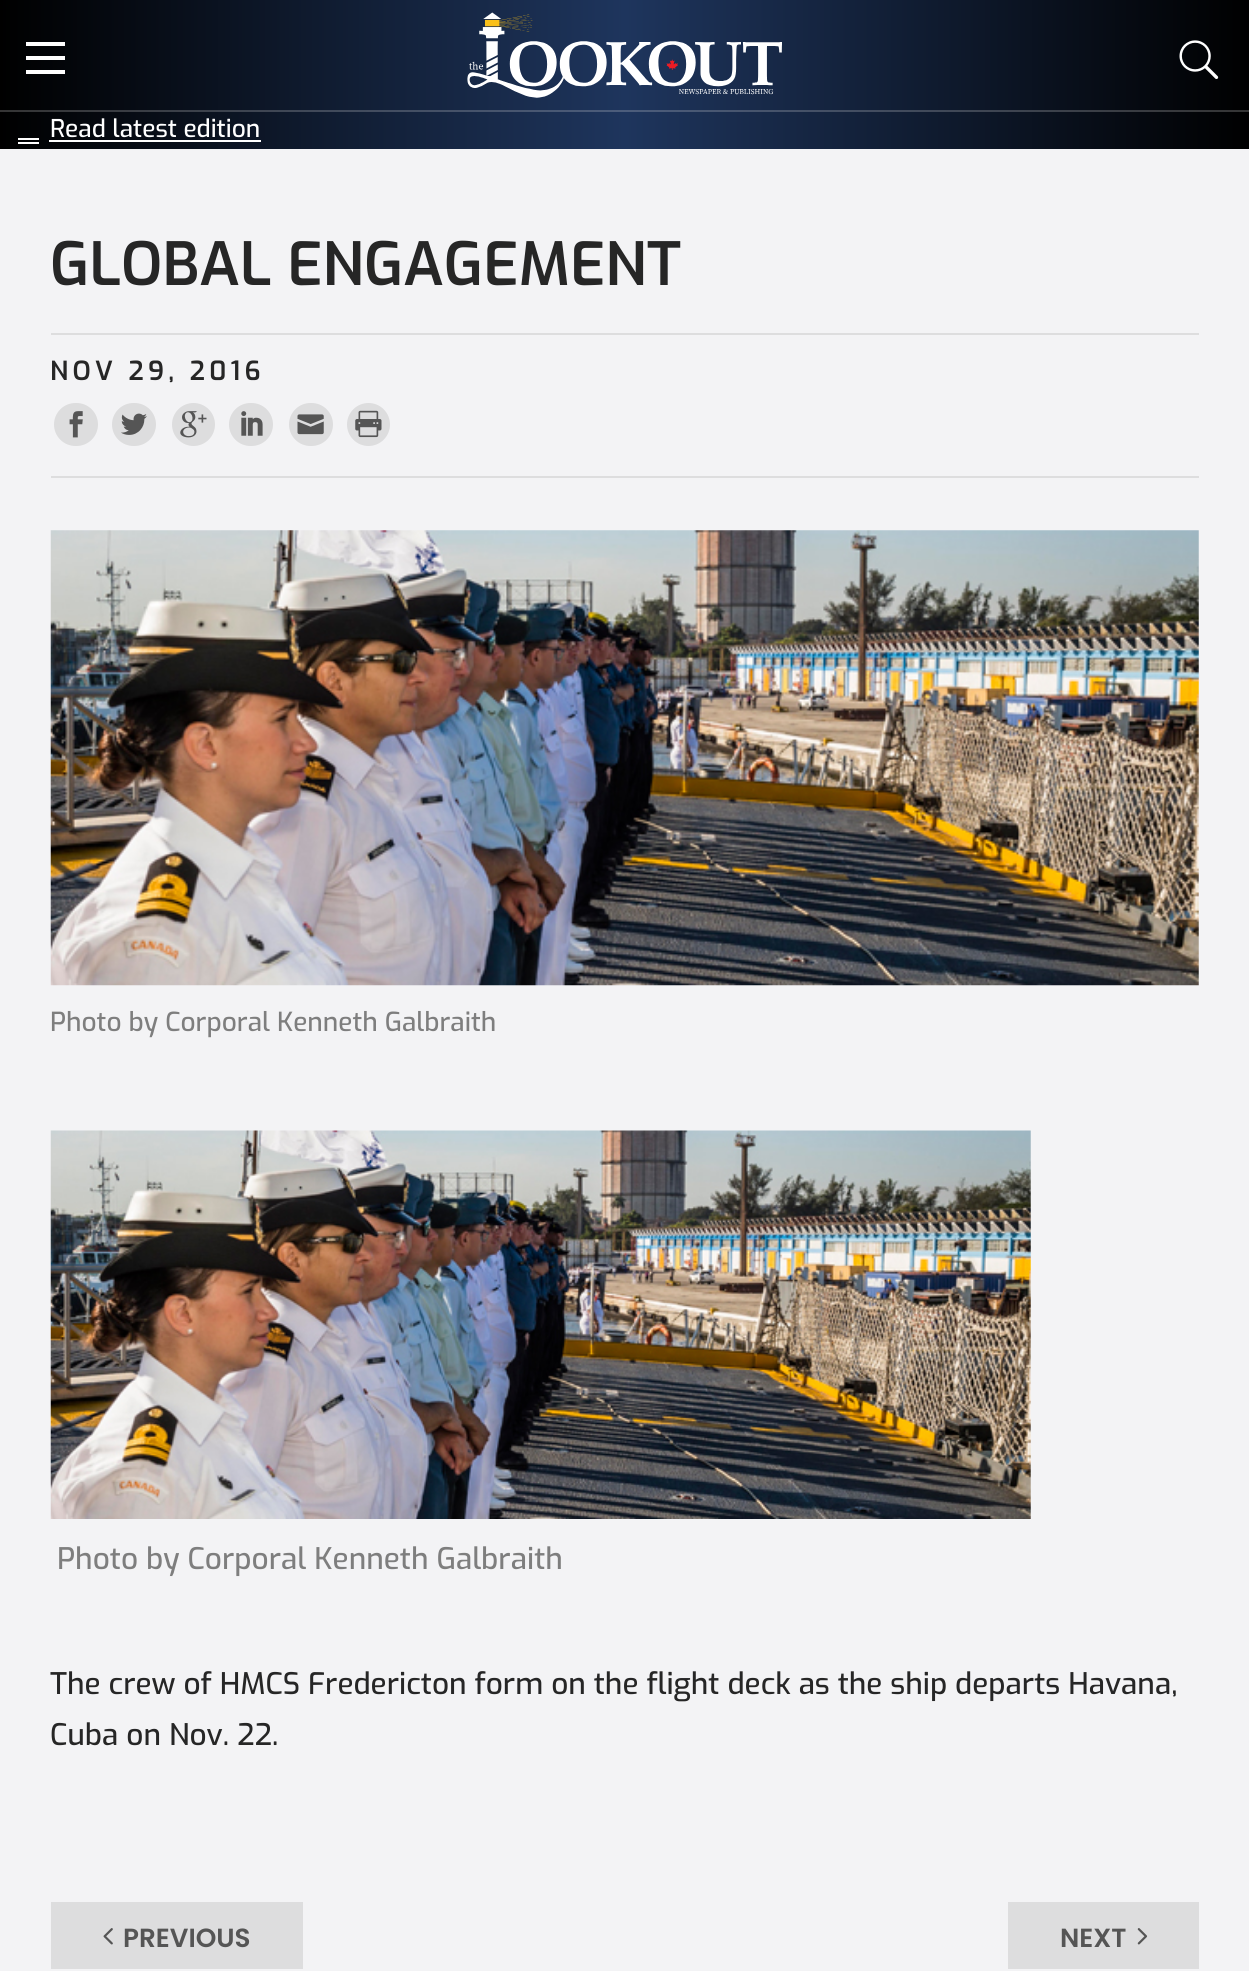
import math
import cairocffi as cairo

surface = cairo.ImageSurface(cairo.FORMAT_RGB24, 1249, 1971)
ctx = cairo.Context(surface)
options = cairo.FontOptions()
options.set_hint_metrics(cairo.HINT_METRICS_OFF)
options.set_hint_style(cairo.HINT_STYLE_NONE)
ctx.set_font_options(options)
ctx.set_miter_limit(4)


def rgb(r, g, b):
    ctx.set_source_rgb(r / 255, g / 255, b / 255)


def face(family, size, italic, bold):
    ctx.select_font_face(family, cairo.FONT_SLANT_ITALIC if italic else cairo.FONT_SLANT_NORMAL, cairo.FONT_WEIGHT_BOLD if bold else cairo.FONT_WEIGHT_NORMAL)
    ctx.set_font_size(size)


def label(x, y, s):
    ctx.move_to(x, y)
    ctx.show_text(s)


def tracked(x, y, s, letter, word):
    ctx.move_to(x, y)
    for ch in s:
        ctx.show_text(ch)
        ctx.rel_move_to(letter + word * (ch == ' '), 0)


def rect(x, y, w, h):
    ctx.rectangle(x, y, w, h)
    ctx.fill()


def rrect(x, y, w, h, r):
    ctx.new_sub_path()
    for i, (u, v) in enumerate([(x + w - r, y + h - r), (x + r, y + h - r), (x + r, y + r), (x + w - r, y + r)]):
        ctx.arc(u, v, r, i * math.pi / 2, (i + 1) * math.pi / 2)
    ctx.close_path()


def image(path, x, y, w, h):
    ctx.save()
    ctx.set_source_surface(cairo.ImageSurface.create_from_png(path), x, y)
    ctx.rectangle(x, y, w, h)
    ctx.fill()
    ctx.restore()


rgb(243, 243, 245)
ctx.paint()
gradient = cairo.LinearGradient(0, 74, 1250, 74)
gradient.add_color_stop_rgba(0, 0, 0, 0, 1)
gradient.add_color_stop_rgba(0.5, 0.118, 0.208, 0.365, 1)
gradient.add_color_stop_rgba(1, 0, 0, 0, 1)
ctx.set_source(gradient)
rect(0, 0, 1249, 149)
rgb(255, 255, 255)
rect(26, 56, 39, 4)
rect(26, 42, 39, 4)
rect(26, 70, 39, 4)
gradient = cairo.LinearGradient(0, 74, 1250, 74)
gradient.add_color_stop_rgba(0, 0.208, 0.208, 0.208, 1)
gradient.add_color_stop_rgba(0.5, 0.298, 0.365, 0.486, 1)
gradient.add_color_stop_rgba(1, 0.208, 0.208, 0.208, 1)
ctx.set_source(gradient)
rect(0, 110, 1249, 2)
image('image0.png', 467, 12, 315, 86)
image('image1.png', 1179, 40, 40, 39)
face('Exo Medium', 24.5, 0, 0)
rgb(255, 255, 255)
label(50, 137, 'Read latest edition')
rect(49, 140, 212, 2)
rect(18, 138, 21, 2)
rect(18, 142, 21, 2)
face('Exo SemiBold', 59.5, 0, 0)
rgb(38, 38, 38)
label(50, 285, 'GLOBAL ENGAGEMENT')
rgb(221, 221, 222)
rect(51, 333, 1148, 2)
rect(51, 476, 1148, 2)
face('Exo SemiBold', 26.25, 0, 0)
rgb(38, 38, 38)
tracked(50, 380, 'NOV 29, 2016', 4.25, 0)
rgb(221, 221, 222)
rrect(54, 403, 44, 43, 21.5)
ctx.fill()
image('image2.png', 69, 411, 14, 27)
rrect(112, 403, 44, 43, 21.5)
ctx.fill()
image('image3.png', 121, 413, 26, 22)
ctx.arc(193.5, 424.5, 21.5, 0, 2 * math.pi)
ctx.fill()
image('image4.png', 180, 411, 27, 27)
rrect(229, 403, 44, 43, 21.5)
ctx.fill()
image('image5.png', 241, 411, 22, 25)
rrect(289, 403, 44, 43, 21.5)
ctx.fill()
image('image6.png', 297, 414, 27, 21)
ctx.arc(368.5, 424.5, 21.5, 0, 2 * math.pi)
ctx.fill()
image('image7.png', 355, 410, 27, 28)
image('image8.png', 50, 530, 1149, 456)
face('Exo Medium', 26.25, 0, 0)
rgb(126, 126, 126)
label(50, 1031, 'Photo by Corporal Kenneth Galbraith')
image('image9.png', 50, 1130, 981, 389)
face('Exo Medium', 29.75, 0, 0)
label(57, 1569, 'Photo by Corporal Kenneth Galbraith')
rgb(38, 38, 38)
label(50, 1694, 'The crew of HMCS Fredericton form on the flight deck as the ship departs Havana,')
label(50, 1745, 'Cuba on Nov. 22.')
rgb(221, 221, 222)
rect(51, 1902, 252, 67)
image('image10.png', 103, 1928, 10, 17)
face('Poppins SemiBold', 26.25, 0, 0)
rgb(85, 85, 85)
label(123, 1947, 'PREVIOUS')
rgb(221, 221, 222)
rect(1008, 1902, 191, 67)
rgb(85, 85, 85)
label(1060, 1947, 'NEXT')
image('image11.png', 1137, 1928, 11, 17)
surface.write_to_png('render.png')
